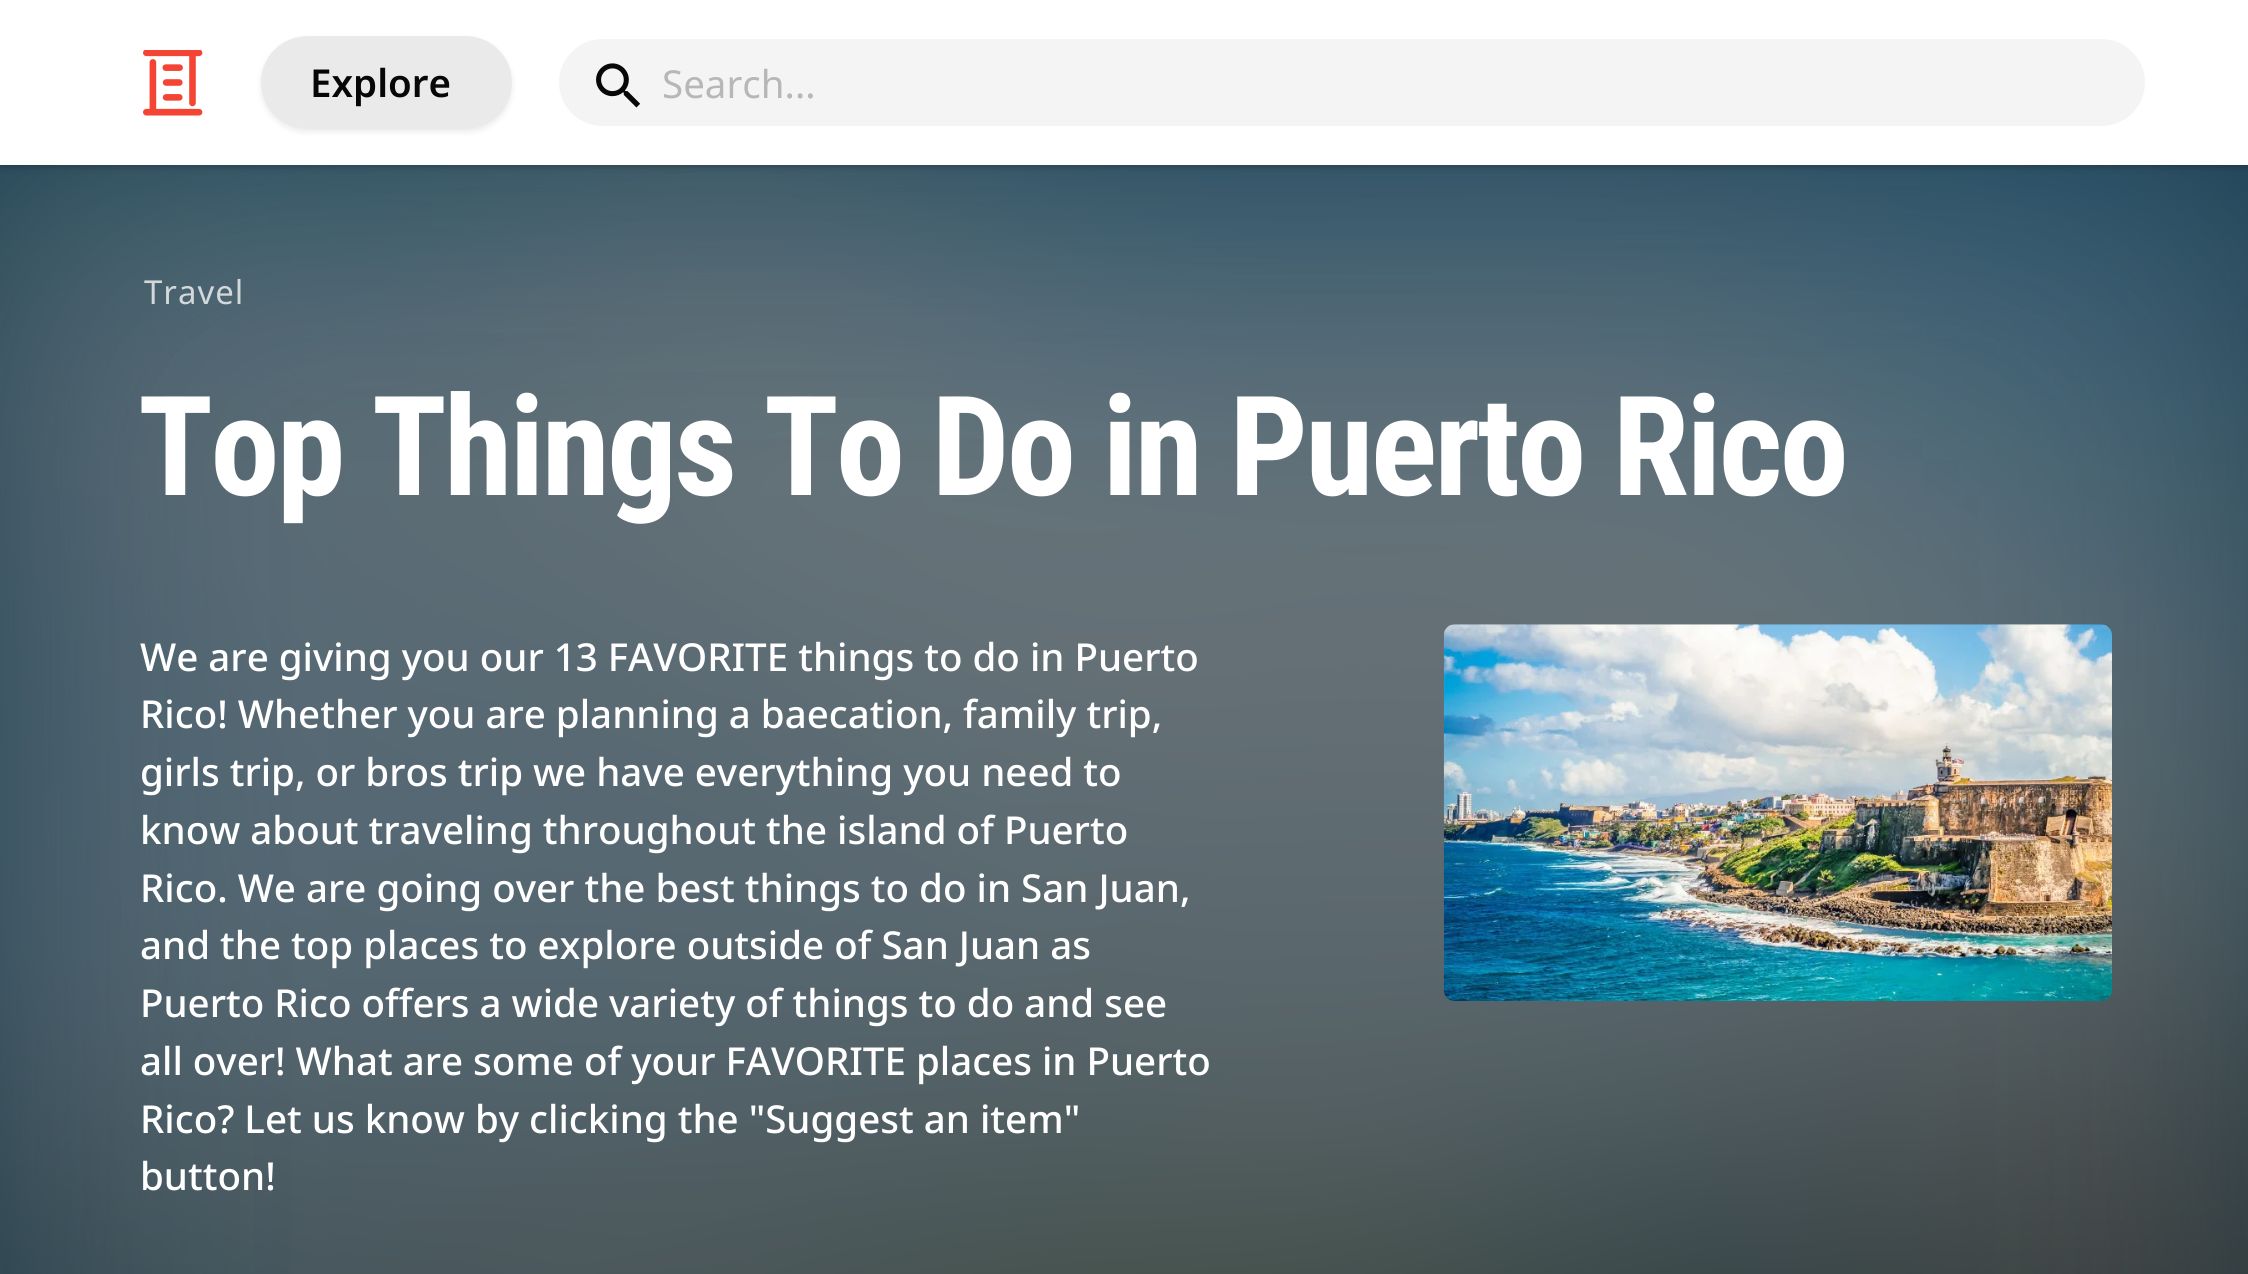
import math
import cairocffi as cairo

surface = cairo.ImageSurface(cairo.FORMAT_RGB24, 2248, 1274)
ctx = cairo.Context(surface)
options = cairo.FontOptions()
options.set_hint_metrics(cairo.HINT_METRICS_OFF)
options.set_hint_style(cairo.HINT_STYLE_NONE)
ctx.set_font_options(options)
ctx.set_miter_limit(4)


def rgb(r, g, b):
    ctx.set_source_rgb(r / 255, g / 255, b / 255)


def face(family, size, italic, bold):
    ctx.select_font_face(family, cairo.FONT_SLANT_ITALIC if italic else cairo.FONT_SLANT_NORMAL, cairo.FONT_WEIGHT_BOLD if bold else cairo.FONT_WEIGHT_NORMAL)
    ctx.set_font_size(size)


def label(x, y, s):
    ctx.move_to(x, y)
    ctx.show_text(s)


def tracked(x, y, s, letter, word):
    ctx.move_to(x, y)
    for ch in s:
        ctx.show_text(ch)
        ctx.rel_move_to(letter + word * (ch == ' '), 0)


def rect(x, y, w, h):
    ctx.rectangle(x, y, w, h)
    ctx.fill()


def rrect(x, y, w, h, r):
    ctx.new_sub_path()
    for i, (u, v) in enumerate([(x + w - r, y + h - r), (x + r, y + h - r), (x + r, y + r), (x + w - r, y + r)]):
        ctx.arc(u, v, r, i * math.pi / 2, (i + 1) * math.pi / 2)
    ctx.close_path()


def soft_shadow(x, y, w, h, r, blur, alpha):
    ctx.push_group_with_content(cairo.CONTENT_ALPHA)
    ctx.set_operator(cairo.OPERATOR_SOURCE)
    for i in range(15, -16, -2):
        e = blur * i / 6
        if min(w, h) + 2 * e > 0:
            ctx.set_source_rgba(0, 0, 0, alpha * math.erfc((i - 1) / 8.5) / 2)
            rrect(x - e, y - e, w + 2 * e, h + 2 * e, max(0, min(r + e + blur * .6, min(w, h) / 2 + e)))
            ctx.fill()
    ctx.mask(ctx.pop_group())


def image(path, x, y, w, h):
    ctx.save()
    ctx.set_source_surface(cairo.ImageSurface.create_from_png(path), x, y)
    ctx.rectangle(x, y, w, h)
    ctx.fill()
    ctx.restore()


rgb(255, 255, 255)
ctx.paint()
gradient = cairo.LinearGradient(1125, 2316, 1125, 165)
gradient.add_color_stop_rgba(0, 0.039, 0.141, 0.196, 1)
gradient.add_color_stop_rgba(1, 0.031, 0.176, 0.239, 1)
ctx.set_source(gradient)
rect(0, 165, 2248, 1109)
image('image2.png', 0, 165, 2248, 1109)
rgb(0, 0, 0)
soft_shadow(3, 6, 2244, 159, 0, 3, 0.15)
soft_shadow(0, 3, 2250, 165, 0, 4, 0.15)
rgb(255, 255, 255)
rect(0, 0, 2248, 165)
image('image0.png', 143, 50, 60, 66)
ctx.save()
ctx.set_fill_rule(cairo.FILL_RULE_EVEN_ODD)
ctx.new_path()
ctx.move_to(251, 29)
ctx.line_to(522, 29)
ctx.line_to(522, 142)
ctx.line_to(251, 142)
ctx.close_path()
ctx.move_to(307.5, 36)
ctx.line_to(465.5, 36)
ctx.curve_to(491, 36, 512, 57, 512, 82.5)
ctx.curve_to(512, 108, 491, 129, 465.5, 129)
ctx.line_to(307.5, 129)
ctx.curve_to(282, 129, 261, 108, 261, 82.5)
ctx.curve_to(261, 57, 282, 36, 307.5, 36)
ctx.close_path()
ctx.clip()
rgb(0, 0, 0)
soft_shadow(261, 39, 251, 93, 46.5, 3, 0.08)
ctx.restore()
ctx.set_source_rgba(0.443, 0.443, 0.482, 0.15)
rrect(261, 36, 251, 93, 46.5)
ctx.fill()
face('Noto Sans SemiBold', 38.5, 0, 0)
rgb(7, 7, 7)
label(310, 97, 'Explore')
rgb(244, 244, 245)
rrect(557.5, 37.5, 1589, 90, 45)
ctx.fill_preserve()
rgb(255, 255, 255)
ctx.set_line_width(3)
ctx.stroke()
image('image1.png', 596, 63, 45, 45)
face('Noto Sans', 38.5, 0, 0)
rgb(183, 183, 184)
label(662, 98, 'Search...')
face('Noto Sans', 33, 0, 0)
rgb(210, 216, 219)
tracked(144, 304, 'Travel', 1, 0)
face('Roboto Condensed', 138.6, 0, 1)
rgb(255, 255, 255)
tracked(138, 495, 'Top Things To Do in Puerto Rico', -2.75, 0)
face('Noto Sans Medium', 38.5, 0, 0)
label(140, 671, 'We are giving you our 13 FAVORITE things to do in Puerto')
label(140, 728, 'Rico! Whether you are planning a baecation, family trip,')
label(140, 786, 'girls trip, or bros trip we have everything you need to')
label(140, 844, 'know about traveling throughout the island of Puerto')
label(140, 902, 'Rico. We are going over the best things to do in San Juan,')
label(140, 959, 'and the top places to explore outside of San Juan as')
label(140, 1017, 'Puerto Rico offers a wide variety of things to do and see')
label(140, 1075, 'all over! What are some of your FAVORITE places in Puerto')
label(140, 1133, 'Rico? Let us know by clicking the "Suggest an item"')
label(140, 1190, 'button!')
image('image3.png', 1443, 624, 669, 377)
surface.write_to_png('render.png')
